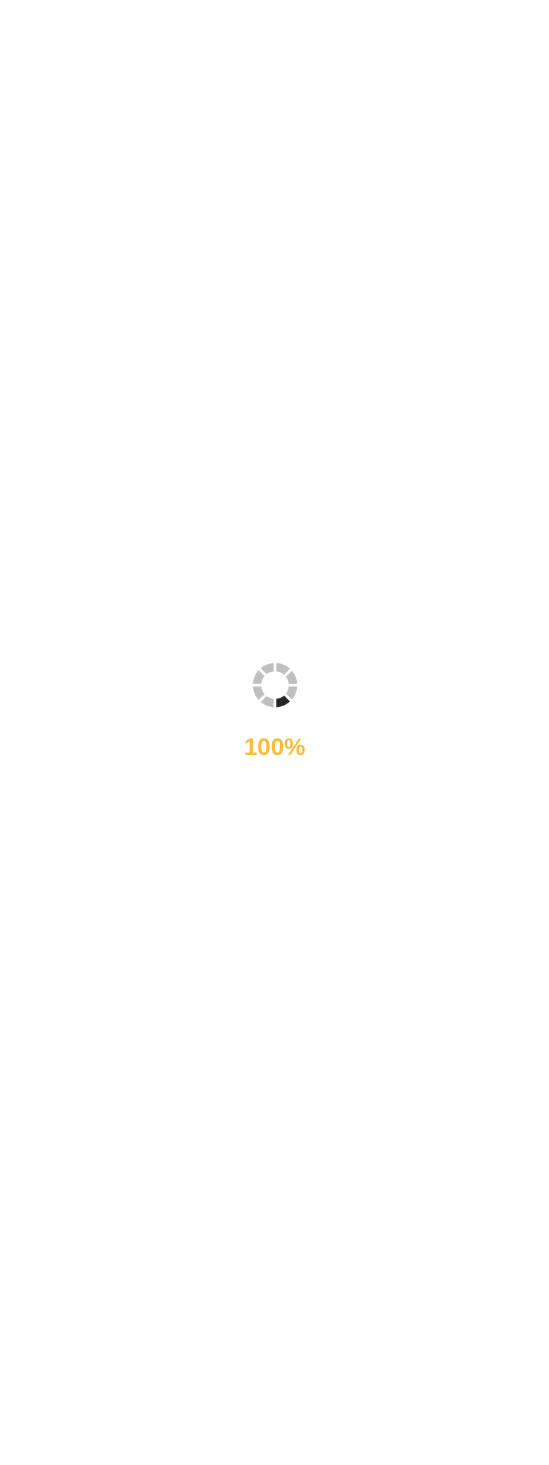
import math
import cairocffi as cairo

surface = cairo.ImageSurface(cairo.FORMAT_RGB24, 549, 1465)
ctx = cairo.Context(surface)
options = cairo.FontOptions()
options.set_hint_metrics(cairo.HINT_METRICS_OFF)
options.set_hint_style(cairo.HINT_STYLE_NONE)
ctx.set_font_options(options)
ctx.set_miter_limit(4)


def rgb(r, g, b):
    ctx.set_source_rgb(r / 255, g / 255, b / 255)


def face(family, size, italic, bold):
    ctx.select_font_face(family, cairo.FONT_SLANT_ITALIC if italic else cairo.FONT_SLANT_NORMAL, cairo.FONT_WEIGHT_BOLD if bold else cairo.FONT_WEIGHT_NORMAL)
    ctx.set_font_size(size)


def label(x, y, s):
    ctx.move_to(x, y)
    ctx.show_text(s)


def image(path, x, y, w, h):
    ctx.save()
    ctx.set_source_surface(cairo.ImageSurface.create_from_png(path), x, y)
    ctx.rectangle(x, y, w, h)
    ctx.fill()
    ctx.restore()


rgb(255, 255, 255)
ctx.paint()
image('image0.png', 252, 662, 46, 46)
face('Liberation Sans', 24, 0, 1)
rgb(254, 188, 54)
label(244, 755, '100%')
surface.write_to_png('render.png')
